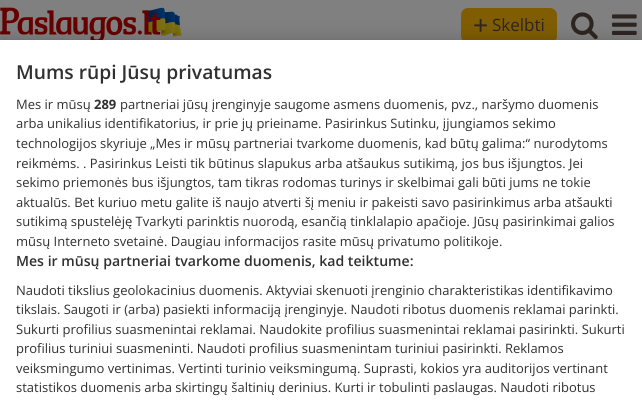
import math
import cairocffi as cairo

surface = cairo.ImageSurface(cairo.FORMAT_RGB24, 642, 400)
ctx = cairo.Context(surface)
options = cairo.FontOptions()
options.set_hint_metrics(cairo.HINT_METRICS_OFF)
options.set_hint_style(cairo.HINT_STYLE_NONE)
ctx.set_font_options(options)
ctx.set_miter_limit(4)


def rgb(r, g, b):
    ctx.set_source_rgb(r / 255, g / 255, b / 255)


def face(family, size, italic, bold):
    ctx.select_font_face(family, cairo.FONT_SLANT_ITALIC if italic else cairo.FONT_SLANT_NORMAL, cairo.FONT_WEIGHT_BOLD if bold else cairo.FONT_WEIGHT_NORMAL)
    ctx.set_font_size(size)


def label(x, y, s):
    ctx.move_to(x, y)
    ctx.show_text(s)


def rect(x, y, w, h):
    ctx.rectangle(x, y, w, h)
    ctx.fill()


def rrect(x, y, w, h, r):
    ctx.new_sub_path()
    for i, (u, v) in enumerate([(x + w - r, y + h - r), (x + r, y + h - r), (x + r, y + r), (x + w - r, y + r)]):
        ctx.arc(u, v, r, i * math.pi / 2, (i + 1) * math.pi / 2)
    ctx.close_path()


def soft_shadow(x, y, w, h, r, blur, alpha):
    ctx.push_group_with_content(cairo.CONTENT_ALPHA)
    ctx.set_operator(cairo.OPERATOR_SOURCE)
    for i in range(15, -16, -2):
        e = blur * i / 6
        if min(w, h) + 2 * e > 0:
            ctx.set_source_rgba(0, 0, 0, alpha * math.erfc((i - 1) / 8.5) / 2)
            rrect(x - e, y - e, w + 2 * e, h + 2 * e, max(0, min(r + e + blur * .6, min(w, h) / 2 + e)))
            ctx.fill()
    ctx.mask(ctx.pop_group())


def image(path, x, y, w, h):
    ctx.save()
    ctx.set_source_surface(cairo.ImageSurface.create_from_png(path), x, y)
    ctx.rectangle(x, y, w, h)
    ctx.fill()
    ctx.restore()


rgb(128, 128, 128)
ctx.paint()
image('image0.png', 0, 7, 182, 33)
rgb(128, 93, 3)
rrect(461, 8, 96, 35, 7)
ctx.fill()
face('Liberation Sans', 26, 0, 0)
rgb(45, 37, 33)
label(473, 34, '+')
face('Open Sans', 17, 0, 0)
label(492, 31, 'Skelbti')
image('image1.png', 571, 12, 27, 28)
image('image2.png', 612, 14, 25, 21)
rgb(0, 0, 0)
soft_shadow(0, 40, 642, 360, 0, 9, 0.2)
rgb(255, 255, 255)
rect(0, 40, 642, 360)
face('Open Sans SemiBold', 19.25, 0, 0)
rgb(48, 48, 48)
label(16, 79, 'Mums rūpi Jūsų privatumas')
face('Open Sans', 13, 0, 0)
label(16, 109, 'Mes ir mūsų')
face('Open Sans', 13, 0, 1)
label(94, 109, '289')
face('Open Sans', 13, 0, 0)
label(120, 109, 'partneriai jūsų įrenginyje saugome asmens duomenis, pvz., naršymo duomenis')
label(16, 128, 'arba unikalius identifikatorius, ir prie jų prieiname. Pasirinkus Sutinku, įjungiamos sekimo')
label(16, 148, 'technologijos skyriuje „Mes ir mūsų partneriai tvarkome duomenis, kad būtų galima:“ nurodytoms')
label(16, 168, 'reikmėms. . Pasirinkus Leisti tik būtinus slapukus arba atšaukus sutikimą, jos bus išjungtos. Jei')
label(16, 187, 'sekimo priemonės bus išjungtos, tam tikras rodomas turinys ir skelbimai gali būti jums ne tokie')
label(16, 207, 'aktualūs. Bet kuriuo metu galite iš naujo atverti šį meniu ir pakeisti savo pasirinkimus arba atšaukti')
label(16, 226, 'sutikimą spustelėję Tvarkyti parinktis nuorodą, esančią tinklalapio apačioje. Jūsų pasirinkimai galios')
label(16, 246, 'mūsų Interneto svetainė. Daugiau informacijos rasite mūsų privatumo politikoje.')
face('Open Sans SemiBold', 14.1, 0, 0)
label(16, 266, 'Mes ir mūsų partneriai tvarkome duomenis, kad teiktume:')
face('Open Sans', 13, 0, 0)
label(16, 295, 'Naudoti tikslius geolokacinius duomenis. Aktyviai skenuoti įrenginio charakteristikas identifikavimo')
label(16, 314, 'tikslais. Saugoti ir (arba) pasiekti informaciją įrenginyje. Naudoti ribotus duomenis reklamai parinkti.')
label(16, 334, 'Sukurti profilius suasmenintai reklamai. Naudokite profilius suasmenintai reklamai pasirinkti. Sukurti')
label(16, 353, 'profilius turiniui suasmeninti. Naudoti profilius suasmenintam turiniui pasirinkti. Reklamos')
label(16, 373, 'veiksmingumo vertinimas. Vertinti turinio veiksmingumą. Suprasti, kokios yra auditorijos vertinant')
label(16, 392, 'statistikos duomenis arba skirtingų šaltinių derinius. Kurti ir tobulinti paslaugas. Naudoti ribotus')
surface.write_to_png('render.png')
